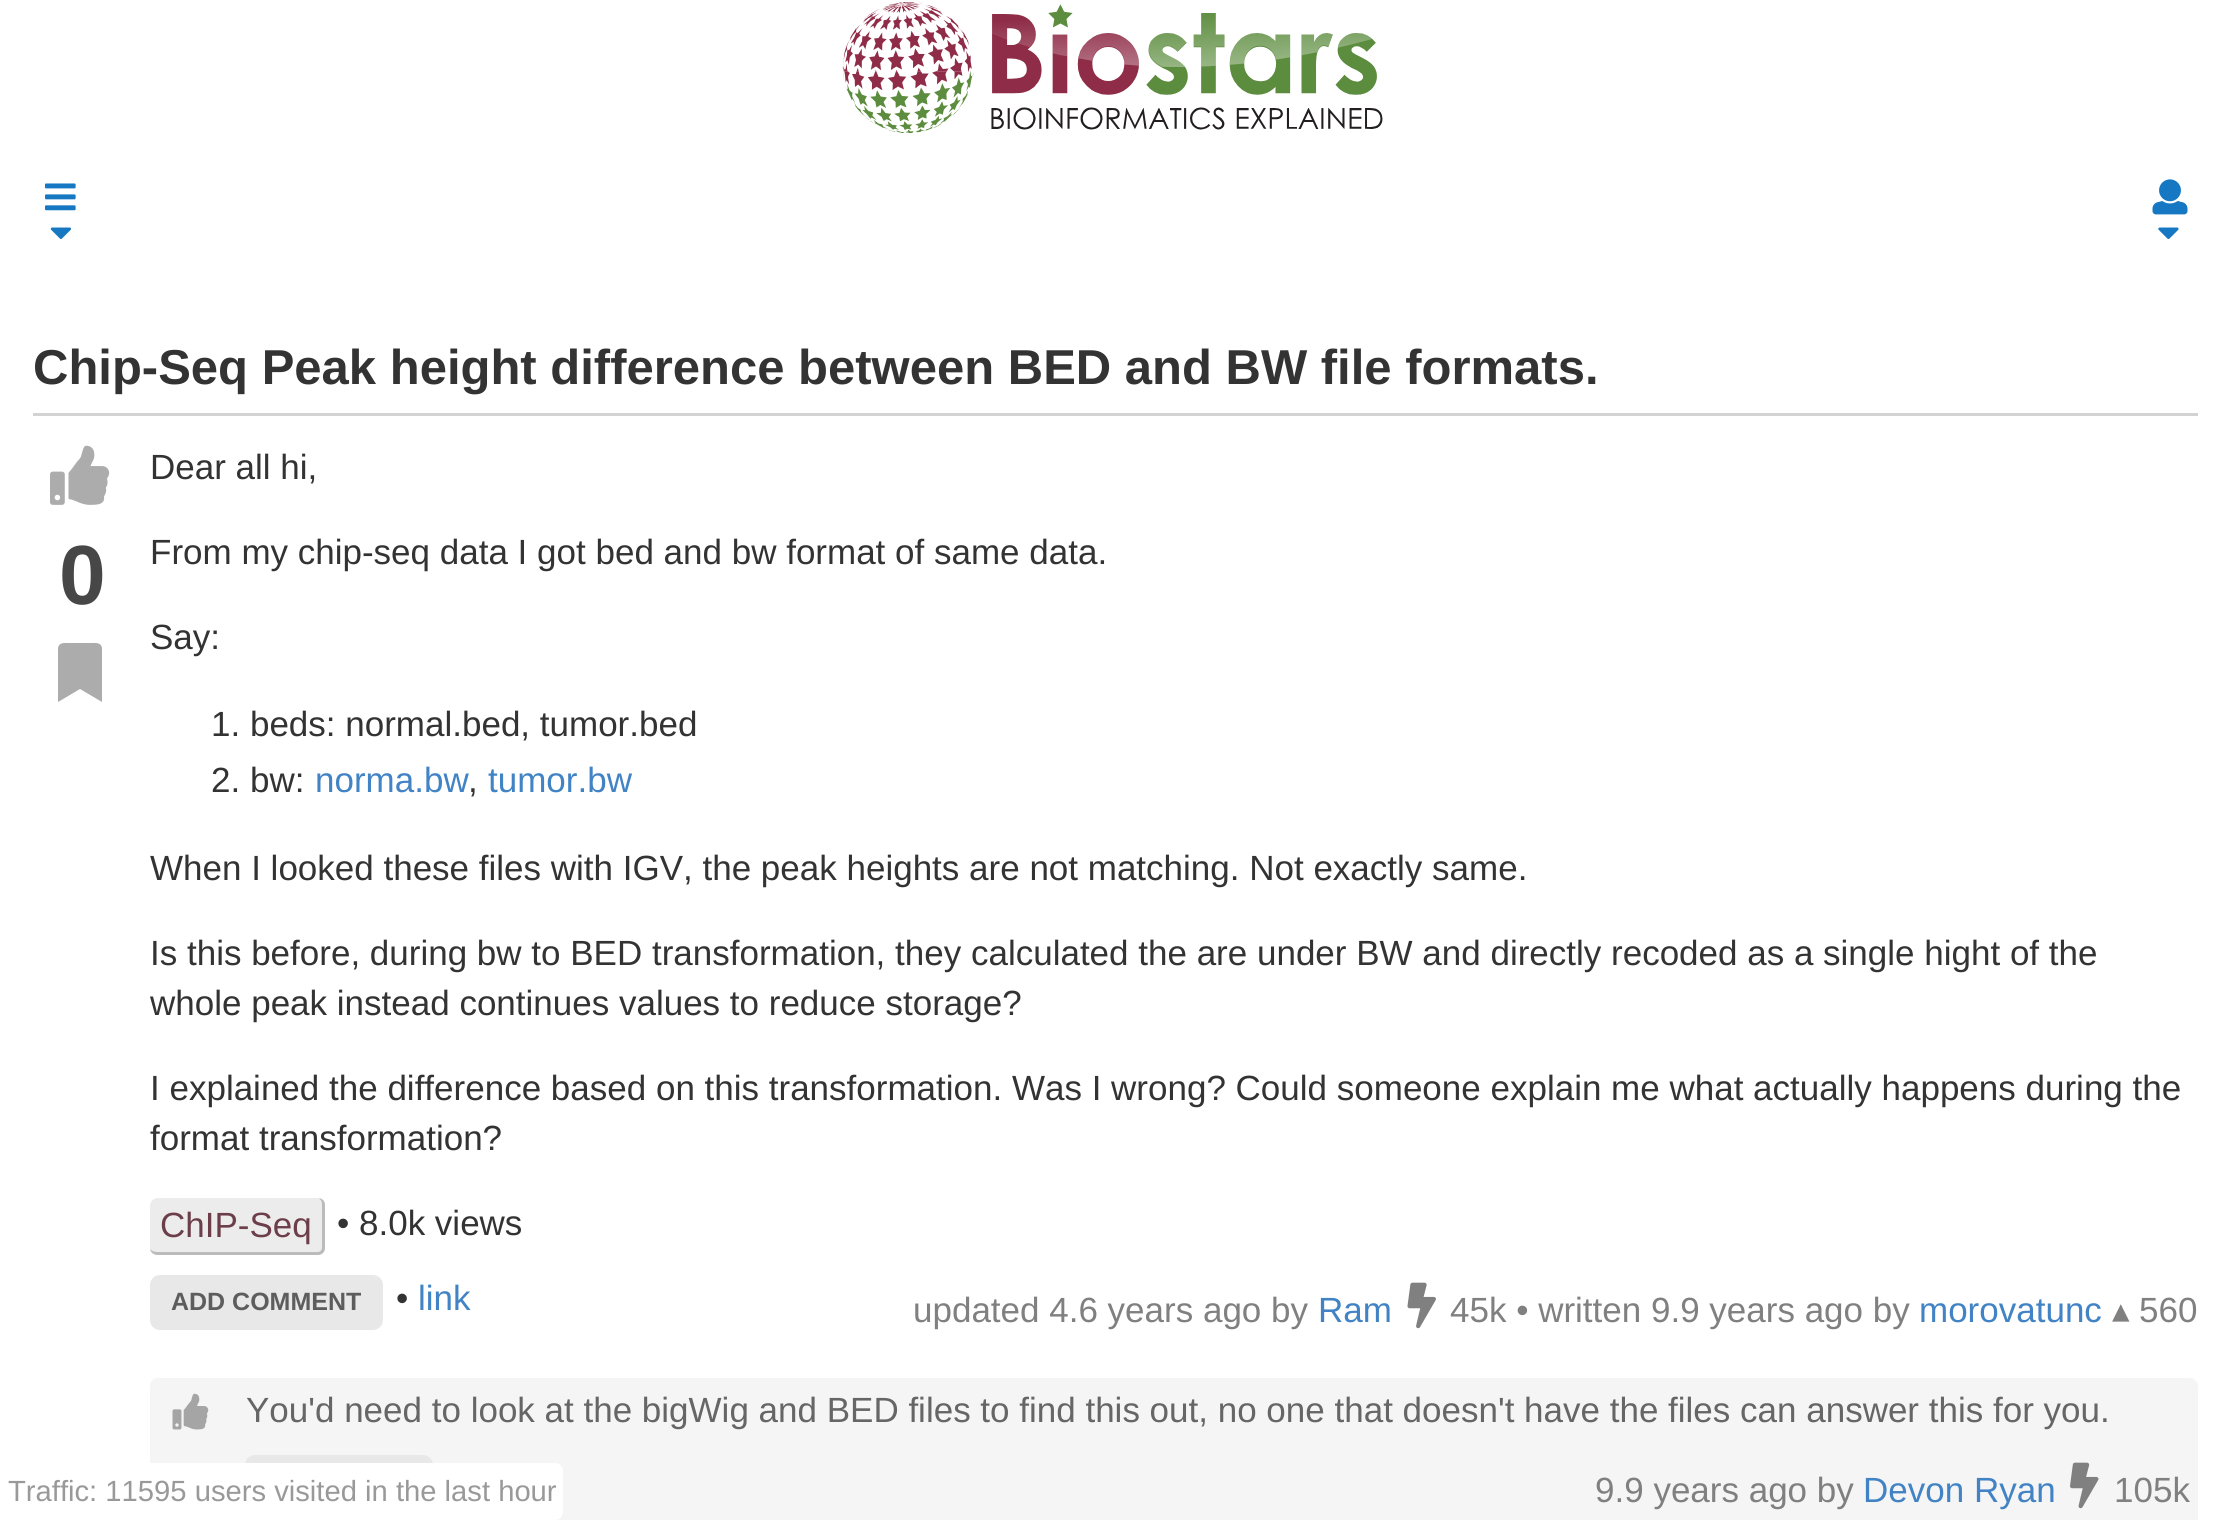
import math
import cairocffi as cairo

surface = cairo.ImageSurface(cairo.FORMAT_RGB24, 2230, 1520)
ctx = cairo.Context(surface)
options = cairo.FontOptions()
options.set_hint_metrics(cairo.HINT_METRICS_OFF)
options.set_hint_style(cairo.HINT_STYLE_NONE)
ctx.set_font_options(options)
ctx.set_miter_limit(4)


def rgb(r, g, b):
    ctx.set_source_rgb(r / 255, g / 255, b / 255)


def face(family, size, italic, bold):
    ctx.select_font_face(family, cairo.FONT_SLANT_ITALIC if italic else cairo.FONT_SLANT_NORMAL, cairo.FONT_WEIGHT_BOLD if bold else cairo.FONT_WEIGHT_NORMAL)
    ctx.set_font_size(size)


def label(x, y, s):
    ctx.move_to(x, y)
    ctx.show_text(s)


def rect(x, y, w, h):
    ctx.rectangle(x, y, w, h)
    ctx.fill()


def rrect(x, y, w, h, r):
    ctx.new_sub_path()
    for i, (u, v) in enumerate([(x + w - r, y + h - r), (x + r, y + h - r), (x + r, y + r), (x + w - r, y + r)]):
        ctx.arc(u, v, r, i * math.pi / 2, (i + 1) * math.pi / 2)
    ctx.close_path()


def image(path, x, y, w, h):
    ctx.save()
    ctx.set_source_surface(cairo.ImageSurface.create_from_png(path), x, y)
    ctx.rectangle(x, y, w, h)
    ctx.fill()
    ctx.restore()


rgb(255, 255, 255)
ctx.paint()
image('image0.png', 842, 2, 541, 131)
image('image1.png', 45, 183, 31, 28)
image('image2.png', 50, 227, 21, 12)
image('image3.png', 2152, 179, 36, 36)
image('image4.png', 2158, 227, 21, 12)
rgb(211, 211, 211)
rect(33, 413, 2165, 3)
face('Liberation Sans', 49, 0, 1)
rgb(51, 51, 51)
label(33, 384, 'Chip-Seq Peak height difference between BED and BW file formats.')
image('image5.png', 50, 445, 60, 60)
face('Liberation Sans', 84, 0, 1)
rgb(71, 71, 71)
label(59, 604, '0')
rgb(172, 172, 172)
ctx.new_path()
ctx.move_to(58, 702)
ctx.line_to(58, 648)
ctx.curve_to(59, 642, 65, 643, 69, 643)
ctx.line_to(91, 643)
ctx.curve_to(95, 643, 101, 642, 102, 648)
ctx.line_to(102, 702)
ctx.line_to(80, 689)
ctx.close_path()
ctx.fill()
face('Liberation Sans', 35, 0, 0)
rgb(51, 51, 51)
label(150, 479, 'Dear all hi,')
label(150, 564, 'From my chip-seq data I got bed and bw format of same data.')
label(150, 649, 'Say:')
label(211, 736, '1. beds: normal.bed, tumor.bed')
label(211, 792, '2. bw:')
rgb(65, 131, 196)
label(315, 792, 'norma.bw')
rgb(51, 51, 51)
label(468, 792, ',')
rgb(65, 131, 196)
label(488, 792, 'tumor.bw')
rgb(51, 51, 51)
label(150, 880, 'When I looked these files with IGV, the peak heights are not matching. Not exactly same.')
label(150, 965, 'Is this before, during bw to BED transformation, they calculated the are under BW and directly recoded as a single hight of the')
label(150, 1015, 'whole peak instead continues values to reduce storage?')
label(150, 1100, 'I explained the difference based on this transformation. Was I wrong? Could someone explain me what actually happens during the')
label(150, 1150, 'format transformation?')
rgb(236, 236, 236)
rrect(150, 1198, 175, 57, 8)
ctx.fill()
rgb(187, 187, 187)
ctx.set_fill_rule(cairo.FILL_RULE_EVEN_ODD)
ctx.new_path()
ctx.move_to(158, 1198)
ctx.line_to(318, 1198)
ctx.curve_to(322, 1198, 325, 1201, 325, 1205)
ctx.line_to(325, 1248)
ctx.curve_to(325, 1252, 322, 1255, 318, 1255)
ctx.line_to(158, 1255)
ctx.curve_to(153, 1255, 150, 1252, 150, 1248)
ctx.line_to(150, 1205)
ctx.curve_to(150, 1201, 153, 1198, 158, 1198)
ctx.close_path()
ctx.move_to(158, 1198)
ctx.line_to(318, 1198)
ctx.curve_to(320, 1198, 322, 1201, 322, 1205)
ctx.line_to(322, 1248)
ctx.curve_to(322, 1250, 320, 1252, 318, 1252)
ctx.line_to(158, 1252)
ctx.curve_to(153, 1252, 150, 1250, 150, 1248)
ctx.line_to(150, 1205)
ctx.curve_to(150, 1201, 153, 1198, 158, 1198)
ctx.close_path()
ctx.fill()
rgb(107, 62, 74)
label(160, 1237, 'ChIP-Seq')
rgb(51, 51, 51)
label(337, 1235, '• 8.0k views')
rgb(232, 232, 232)
rrect(150, 1275, 233, 55, 10)
ctx.fill()
face('Liberation Sans', 25, 0, 1)
rgb(93, 93, 93)
label(171, 1310, 'ADD COMMENT')
face('Liberation Sans', 35, 0, 0)
rgb(51, 51, 51)
label(396, 1310, '•')
rgb(65, 131, 196)
label(418, 1310, 'link')
rgb(128, 128, 128)
label(913, 1322, 'updated 4.6 years ago by')
rgb(65, 131, 196)
label(1318, 1322, 'Ram')
image('image6.png', 1407, 1282, 29, 47)
rgb(128, 128, 128)
label(1450, 1322, '45k • written 9.9 years ago by')
rgb(65, 131, 196)
label(1919, 1322, 'morovatunc')
face('DejaVu Sans', 35, 0, 0)
rgb(128, 128, 128)
label(2112, 1322, '▴')
face('Liberation Sans', 35, 0, 0)
label(2139, 1322, '560')
rgb(245, 245, 245)
rrect(150, 1378, 2048, 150, 8)
ctx.fill()
image('image7.png', 172, 1393, 37, 37)
rgb(102, 102, 102)
label(246, 1422, 'You\'d need to look at the bigWig and BED files to find this out, no one that doesn\'t have the files can answer this for you.')
rgb(232, 232, 232)
rrect(245, 1455, 188, 55, 10)
ctx.fill()
rgb(128, 128, 128)
label(1595, 1502, '9.9 years ago by')
rgb(65, 131, 196)
label(1863, 1502, 'Devon Ryan')
image('image8.png', 2070, 1462, 29, 47)
rgb(128, 128, 128)
label(2114, 1502, '105k')
rgb(255, 255, 255)
rrect(0, 1463, 563, 57, 8)
ctx.fill()
face('Liberation Sans', 29.2, 0, 0)
rgb(153, 153, 153)
label(8, 1501, 'Traffic: 11595 users visited in the last hour')
surface.write_to_png('render.png')
